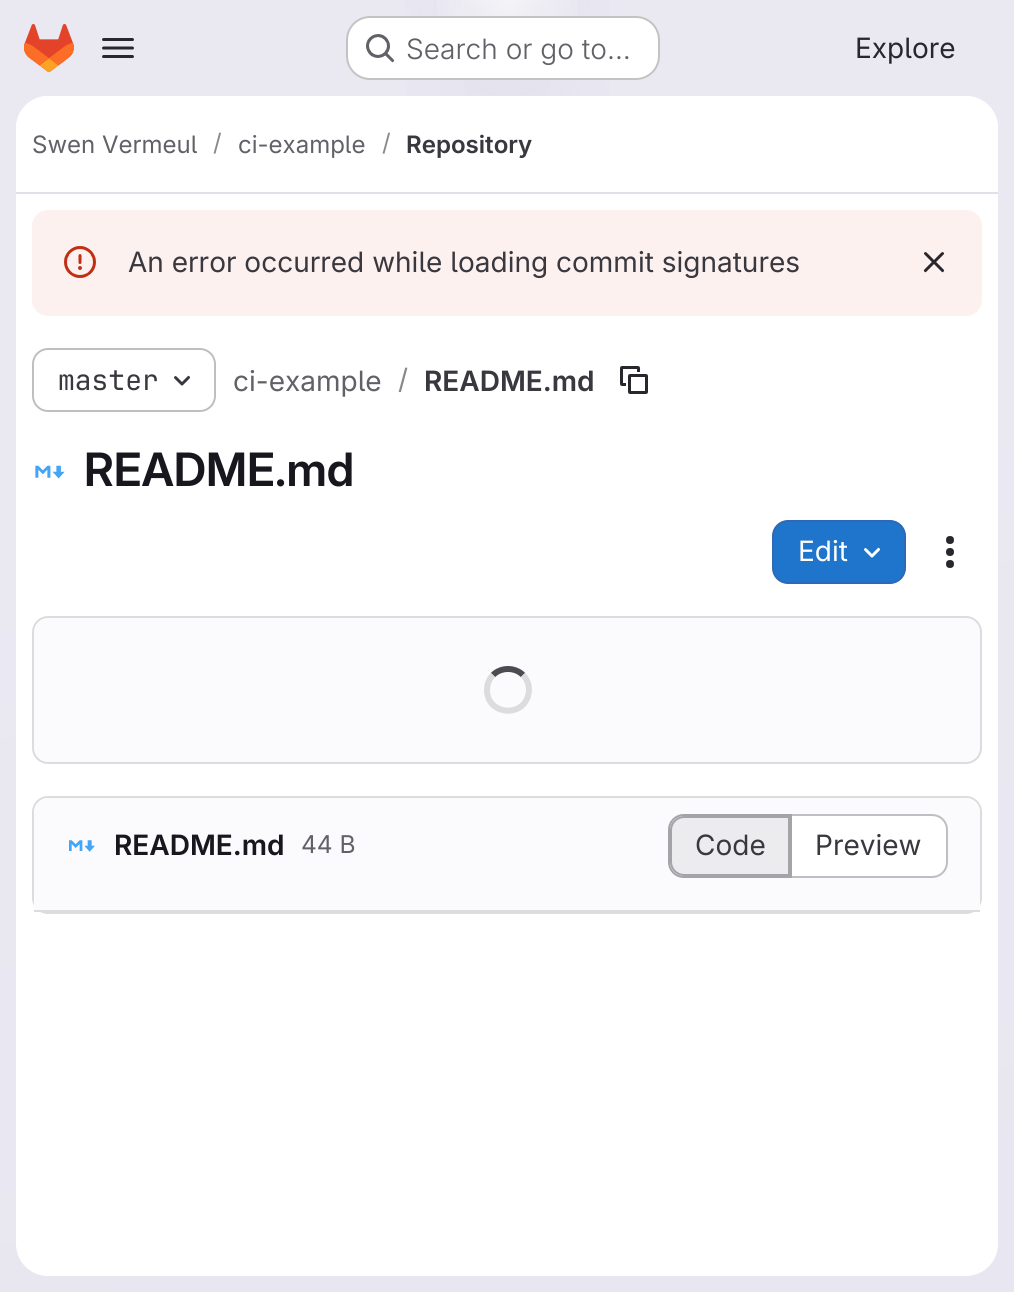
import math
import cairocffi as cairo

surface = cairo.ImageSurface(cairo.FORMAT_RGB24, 1014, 1292)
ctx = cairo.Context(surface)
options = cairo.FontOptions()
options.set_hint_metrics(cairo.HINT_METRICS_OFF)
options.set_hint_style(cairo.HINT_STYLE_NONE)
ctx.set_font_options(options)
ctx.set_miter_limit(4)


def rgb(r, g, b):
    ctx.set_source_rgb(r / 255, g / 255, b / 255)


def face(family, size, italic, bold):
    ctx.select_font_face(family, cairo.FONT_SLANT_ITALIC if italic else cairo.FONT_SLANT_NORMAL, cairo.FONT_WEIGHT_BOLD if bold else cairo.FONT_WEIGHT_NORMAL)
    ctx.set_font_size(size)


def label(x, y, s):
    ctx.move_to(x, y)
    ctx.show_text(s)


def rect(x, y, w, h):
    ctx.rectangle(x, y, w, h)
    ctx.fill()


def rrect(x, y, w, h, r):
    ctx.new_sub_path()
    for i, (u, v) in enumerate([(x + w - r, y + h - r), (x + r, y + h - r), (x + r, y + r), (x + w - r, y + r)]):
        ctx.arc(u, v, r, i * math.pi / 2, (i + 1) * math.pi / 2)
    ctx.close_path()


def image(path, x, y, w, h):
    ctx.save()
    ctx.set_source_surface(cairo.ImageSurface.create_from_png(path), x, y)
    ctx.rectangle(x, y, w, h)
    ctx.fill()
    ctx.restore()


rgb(255, 255, 255)
ctx.paint()
gradient = cairo.LinearGradient(633, 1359, 381, -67)
gradient.add_color_stop_rgba(0, 0.91, 0.902, 0.941, 1)
gradient.add_color_stop_rgba(0.7, 0.918, 0.914, 0.949, 1)
ctx.set_source(gradient)
rect(0, 0, 1014, 1292)
gradient = cairo.RadialGradient(0, 0, 0, 0, 0, 1)
gradient.set_matrix(cairo.Matrix(1 / 507, 0, 0, 1 / 1292, -1 * 507 / 507, -1 * 0 / 1292))
gradient.add_color_stop_rgba(0, 0.894, 0.886, 0.929, 1)
gradient.add_color_stop_rgba(0.28, 0.894, 0.886, 0.929, 0)
ctx.set_source(gradient)
rect(405, 0, 205, 96)
gradient = cairo.RadialGradient(0, 0, 0, 0, 0, 1)
gradient.set_matrix(cairo.Matrix(1 / 507, 0, 0, 1 / 1292, -1 * 507 / 507, -1 * 0 / 1292))
gradient.add_color_stop_rgba(0, 0.894, 0.886, 0.925, 1)
gradient.add_color_stop_rgba(0.2, 0.894, 0.886, 0.925, 0)
ctx.set_source(gradient)
rect(465, 6, 84, 89)
gradient = cairo.RadialGradient(507, 0, 0, 507, 0, 1388)
gradient.add_color_stop_rgba(0, 1, 1, 1, 0.6)
gradient.add_color_stop_rgba(0.06, 1, 1, 1, 0)
ctx.set_source(gradient)
rect(437, 0, 140, 16)
image('image0.png', 24, 24, 50, 48)
image('image1.png', 102, 38, 32, 20)
rgb(255, 255, 255)
rrect(346, 16, 314, 64, 24)
ctx.fill()
rrect(347, 17, 312, 62, 23)
ctx.set_source_rgba(0.02, 0.02, 0.024, 0.24)
ctx.stroke()
image('image2.png', 366, 34, 29, 29)
face('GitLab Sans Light', 28, 0, 0)
rgb(98, 97, 104)
label(406, 59, 'Search or go to…')
face('GitLab Sans', 28, 0, 0)
rgb(40, 39, 45)
label(855, 58, 'Explore')
rgb(255, 255, 255)
rrect(16, 96, 982, 1180, 32)
ctx.fill()
ctx.new_path()
ctx.move_to(48, 96)
ctx.line_to(966, 96)
ctx.curve_to(983.5, 96, 998, 110.5, 998, 128)
ctx.line_to(998, 194)
ctx.line_to(16, 194)
ctx.line_to(16, 128)
ctx.curve_to(16, 110.5, 30.5, 96, 48, 96)
ctx.close_path()
ctx.fill()
rgb(225, 223, 236)
rect(16, 192, 982, 2)
face('GitLab Sans', 24, 0, 0)
rgb(98, 97, 104)
label(32, 153, 'Swen Vermeul')
rgb(137, 136, 141)
label(213, 151, '/')
rgb(98, 97, 104)
label(238, 153, 'ci-example')
rgb(137, 136, 141)
label(382, 151, '/')
face('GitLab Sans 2 SemiBold', 24, 0, 0)
rgb(58, 56, 63)
label(406, 153, 'Repository')
rgb(252, 241, 239)
rrect(32, 210, 950, 106, 16)
ctx.fill()
image('image3.png', 64, 246, 32, 32)
face('GitLab Sans', 28, 0, 0)
rgb(58, 56, 63)
label(128, 272, 'An error occurred while loading commit signatures')
image('image4.png', 923, 252, 22, 21)
rrect(33, 349, 182, 62, 15)
rgb(191, 191, 195)
ctx.stroke()
face('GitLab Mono', 28, 0, 0)
rgb(58, 56, 63)
label(58, 390, 'master')
image('image5.png', 174, 375, 17, 11)
face('GitLab Sans', 28, 0, 0)
rgb(98, 97, 104)
label(233, 391, 'ci-example')
rgb(137, 136, 141)
label(398, 389, '/')
face('GitLab Sans 2 SemiBold', 28, 0, 0)
rgb(58, 56, 63)
label(424, 391, 'README.md')
image('image6.png', 620, 366, 28, 28)
image('image7.png', 35, 465, 30, 14)
face('GitLab Sans SemiBold', 46, 0, 0)
rgb(24, 23, 29)
label(84, 486, 'README.md')
rgb(31, 117, 203)
rrect(773, 521, 132, 62, 15)
ctx.fill_preserve()
rgb(47, 104, 180)
ctx.stroke()
face('GitLab Sans', 28, 0, 0)
rgb(255, 255, 255)
label(798, 561, 'Edit')
image('image8.png', 864, 547, 17, 11)
image('image9.png', 946, 536, 8, 32)
rgb(251, 250, 253)
rrect(33, 617, 948, 146, 15)
ctx.fill_preserve()
rgb(220, 220, 222)
ctx.stroke()
ctx.new_path()
ctx.move_to(493, 675)
ctx.curve_to(501, 667, 515, 667, 523, 675)
rgb(76, 75, 81)
ctx.set_line_width(6)
ctx.stroke()
ctx.new_path()
ctx.move_to(523, 675)
ctx.curve_to(528, 680, 530, 687.5, 528.5, 694)
ctx.curve_to(523.5, 718.5, 487, 715, 487, 690)
ctx.curve_to(487, 684.5, 489, 679, 493, 675)
rgb(220, 220, 222)
ctx.stroke()
rrect(33, 797, 948, 116, 15)
ctx.set_line_width(2)
ctx.stroke()
rgb(251, 250, 253)
ctx.new_path()
ctx.move_to(48, 798)
ctx.line_to(966, 798)
ctx.curve_to(973.5, 798, 980, 804.5, 980, 812)
ctx.line_to(980, 912)
ctx.line_to(34, 912)
ctx.line_to(34, 812)
ctx.curve_to(34, 804.5, 40.5, 798, 48, 798)
ctx.close_path()
ctx.fill()
rgb(220, 220, 222)
rect(34, 910, 946, 2)
image('image10.png', 69, 840, 26, 12)
face('GitLab Sans 2 SemiBold', 28, 0, 0)
rgb(24, 23, 29)
label(114, 855, 'README.md')
face('GitLab Sans', 24.5, 0, 0)
rgb(98, 97, 104)
label(301, 853, '44 B')
rgb(236, 236, 239)
ctx.new_path()
ctx.move_to(684, 817)
ctx.line_to(789, 817)
ctx.line_to(789, 875)
ctx.line_to(684, 875)
ctx.curve_to(677, 875, 671, 869, 671, 862)
ctx.line_to(671, 830)
ctx.curve_to(671, 823, 677, 817, 684, 817)
ctx.close_path()
ctx.fill_preserve()
rgb(164, 163, 168)
ctx.stroke()
ctx.set_fill_rule(cairo.FILL_RULE_EVEN_ODD)
ctx.new_path()
ctx.move_to(684, 814)
ctx.line_to(790, 814)
ctx.line_to(790, 878)
ctx.line_to(684, 878)
ctx.curve_to(675, 878, 668, 871, 668, 862)
ctx.line_to(668, 830)
ctx.curve_to(668, 821, 675, 814, 684, 814)
ctx.close_path()
ctx.move_to(684, 816)
ctx.line_to(790, 816)
ctx.line_to(790, 876)
ctx.line_to(684, 876)
ctx.curve_to(676, 876, 670, 870, 670, 862)
ctx.line_to(670, 830)
ctx.curve_to(670, 822, 676, 816, 684, 816)
ctx.close_path()
ctx.fill()
face('GitLab Sans', 28, 0, 0)
rgb(58, 56, 63)
label(695, 855, 'Code')
rgb(255, 255, 255)
ctx.new_path()
ctx.move_to(792, 816)
ctx.line_to(932, 816)
ctx.curve_to(939.5, 816, 946, 822.5, 946, 830)
ctx.line_to(946, 862)
ctx.curve_to(946, 869.5, 939.5, 876, 932, 876)
ctx.line_to(792, 876)
ctx.close_path()
ctx.fill()
rgb(191, 191, 195)
ctx.new_path()
ctx.move_to(792, 814)
ctx.line_to(932, 814)
ctx.curve_to(941, 814, 948, 821, 948, 830)
ctx.line_to(948, 862)
ctx.curve_to(948, 871, 941, 878, 932, 878)
ctx.line_to(792, 878)
ctx.close_path()
ctx.move_to(792, 816)
ctx.line_to(932, 816)
ctx.curve_to(940, 816, 946, 822, 946, 830)
ctx.line_to(946, 862)
ctx.curve_to(946, 870, 940, 876, 932, 876)
ctx.line_to(792, 876)
ctx.close_path()
ctx.fill()
rgb(164, 163, 168)
rect(790, 814, 2, 64)
rgb(58, 56, 63)
label(815, 855, 'Preview')
surface.write_to_png('render.png')
